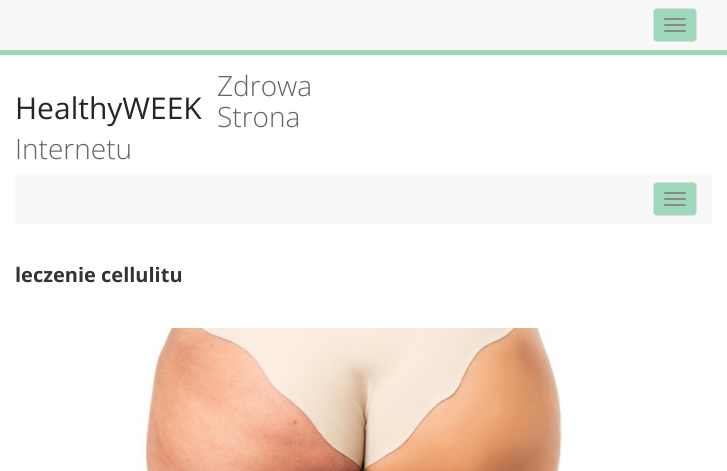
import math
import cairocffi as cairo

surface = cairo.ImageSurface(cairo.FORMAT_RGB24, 727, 471)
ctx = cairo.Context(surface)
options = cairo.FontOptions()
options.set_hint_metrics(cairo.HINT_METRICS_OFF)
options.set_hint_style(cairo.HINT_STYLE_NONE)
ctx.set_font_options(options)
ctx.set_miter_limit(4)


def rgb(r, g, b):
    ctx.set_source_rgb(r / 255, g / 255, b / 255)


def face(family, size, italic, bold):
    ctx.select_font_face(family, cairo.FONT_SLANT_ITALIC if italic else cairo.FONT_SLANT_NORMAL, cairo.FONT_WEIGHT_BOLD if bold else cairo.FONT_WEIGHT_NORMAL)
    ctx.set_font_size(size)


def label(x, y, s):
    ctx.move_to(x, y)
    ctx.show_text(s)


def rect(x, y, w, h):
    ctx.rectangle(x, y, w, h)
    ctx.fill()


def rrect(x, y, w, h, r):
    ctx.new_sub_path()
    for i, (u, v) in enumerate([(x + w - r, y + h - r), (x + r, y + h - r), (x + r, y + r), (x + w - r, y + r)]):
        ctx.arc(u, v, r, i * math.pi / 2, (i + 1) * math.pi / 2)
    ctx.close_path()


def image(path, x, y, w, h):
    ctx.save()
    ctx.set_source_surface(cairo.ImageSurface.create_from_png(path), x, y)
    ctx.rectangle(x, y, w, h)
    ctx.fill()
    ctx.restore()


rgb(255, 255, 255)
ctx.paint()
rgb(158, 216, 187)
rect(0, 50, 727, 5)
rgb(248, 248, 248)
rect(0, 0, 727, 50)
rgb(158, 216, 187)
rrect(653.5, 8.5, 43, 33, 3.5)
ctx.fill_preserve()
rgb(221, 221, 221)
ctx.set_line_width(1)
ctx.stroke()
rgb(136, 136, 136)
rrect(664, 18, 22, 2, 1)
ctx.fill()
rrect(664, 24, 22, 2, 1)
ctx.fill()
rrect(664, 30, 22, 2, 1)
ctx.fill()
face('Open Sans Light', 28, 0, 0)
rgb(99, 99, 99)
label(217, 96, 'Zdrowa')
label(217, 127, 'Strona')
label(15, 159, 'Internetu')
face('Open Sans', 30, 0, 0)
rgb(37, 37, 37)
label(15, 119, 'HealthyWEEK')
rgb(248, 248, 248)
rect(15, 174, 697, 50)
rgb(158, 216, 187)
rrect(653.5, 182.5, 43, 33, 3.5)
ctx.fill_preserve()
rgb(221, 221, 221)
ctx.stroke()
rgb(136, 136, 136)
rrect(664, 192, 22, 2, 1)
ctx.fill()
rrect(664, 198, 22, 2, 1)
ctx.fill()
rrect(664, 204, 22, 2, 1)
ctx.fill()
face('Open Sans', 20, 0, 1)
rgb(51, 51, 51)
label(15, 282, 'leczenie cellulitu')
image('image0.png', 140, 328, 424, 143)
surface.write_to_png('render.png')
